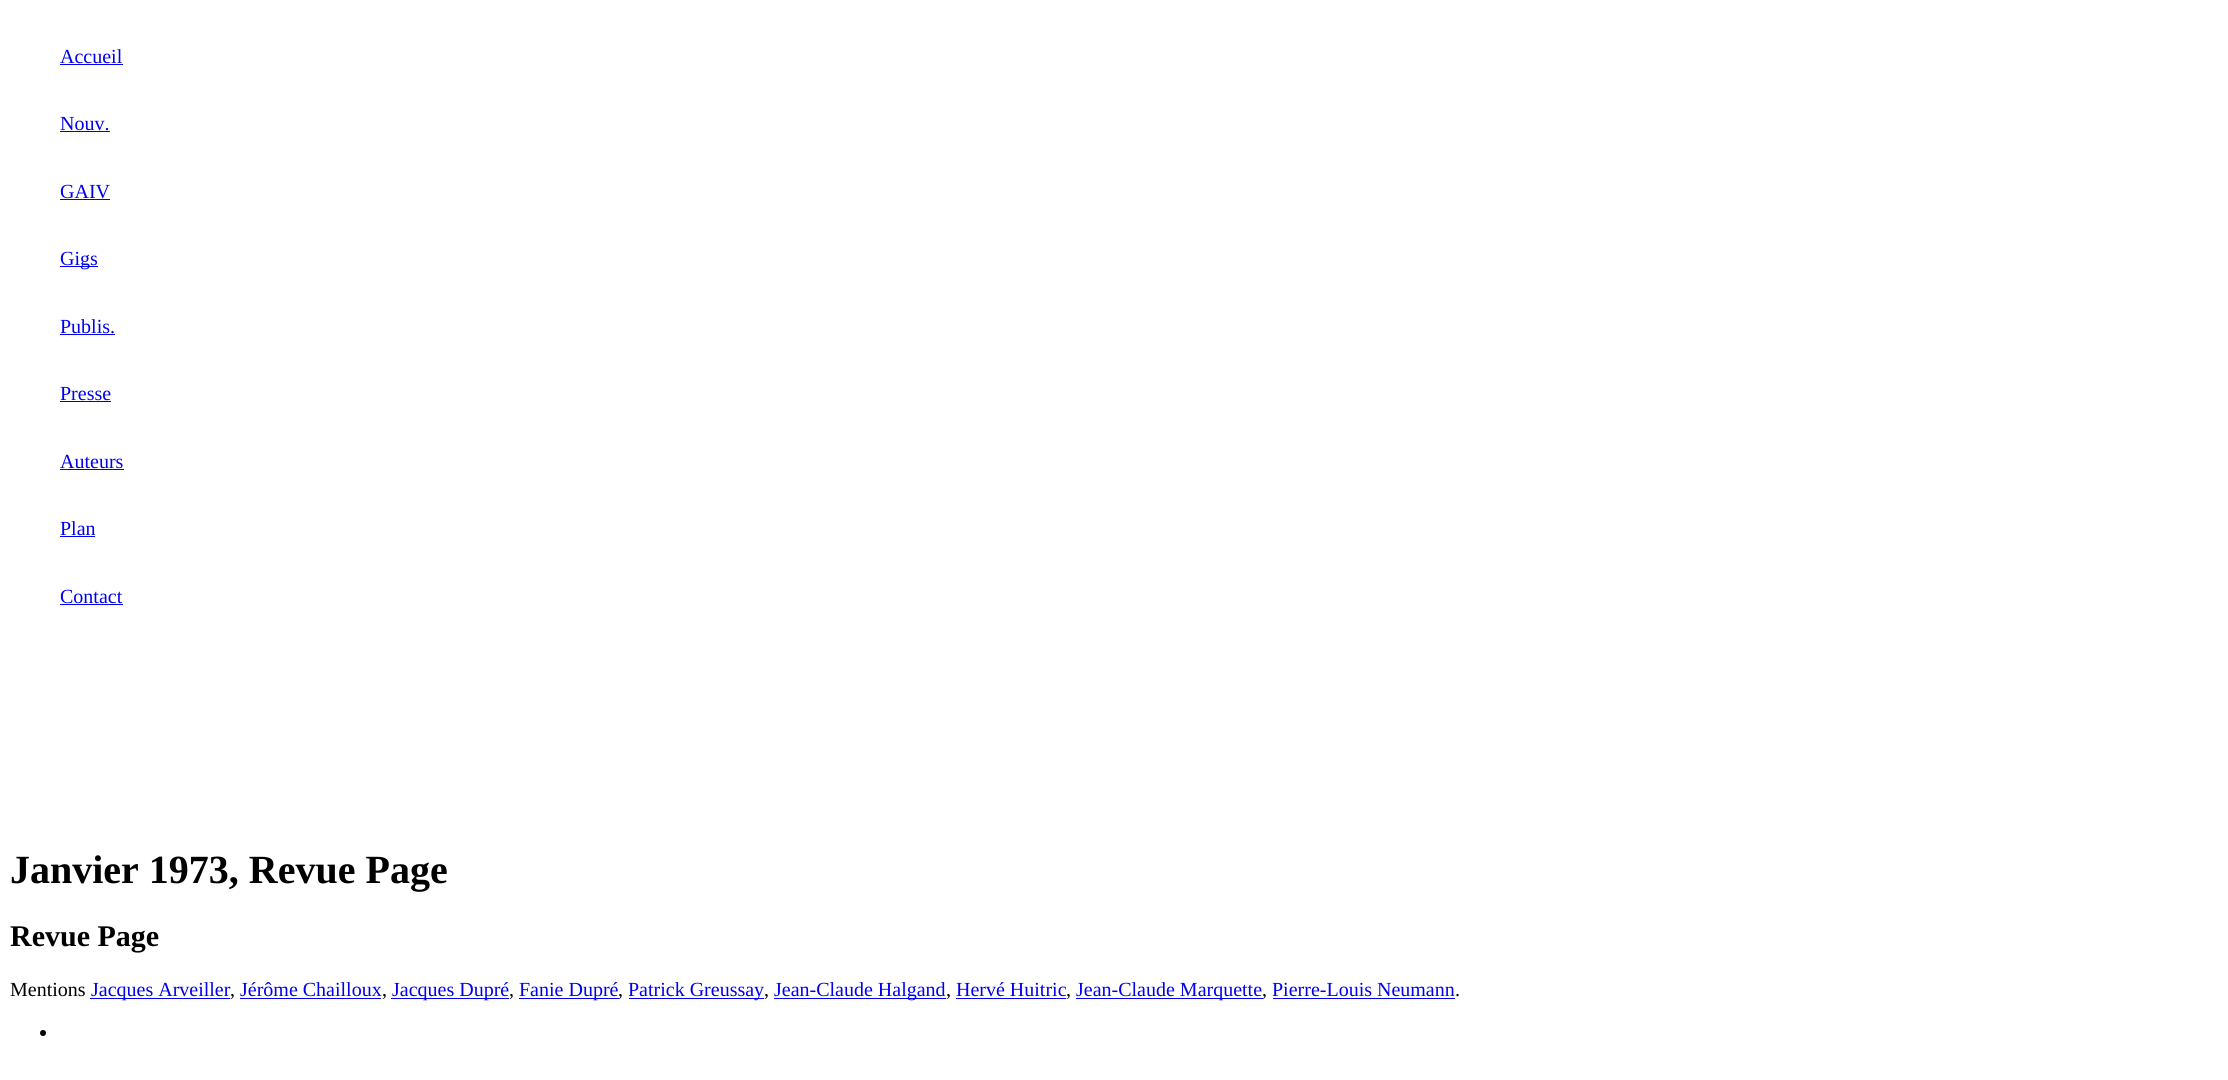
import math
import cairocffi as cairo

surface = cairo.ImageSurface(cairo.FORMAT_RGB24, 2228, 1080)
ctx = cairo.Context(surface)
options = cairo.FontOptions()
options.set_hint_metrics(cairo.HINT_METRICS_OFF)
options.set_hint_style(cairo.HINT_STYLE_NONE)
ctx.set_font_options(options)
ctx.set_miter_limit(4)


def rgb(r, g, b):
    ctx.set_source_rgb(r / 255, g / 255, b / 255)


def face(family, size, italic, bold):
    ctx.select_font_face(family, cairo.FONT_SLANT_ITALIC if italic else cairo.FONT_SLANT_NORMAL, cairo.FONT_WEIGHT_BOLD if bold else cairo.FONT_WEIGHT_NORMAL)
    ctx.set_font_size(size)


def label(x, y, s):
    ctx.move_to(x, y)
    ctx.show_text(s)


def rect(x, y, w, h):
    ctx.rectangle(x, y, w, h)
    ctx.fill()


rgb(255, 255, 255)
ctx.paint()
face('Liberation Serif', 20, 0, 0)
rgb(0, 0, 238)
label(60, 63, 'Accueil')
rect(60, 64, 63, 1)
label(60, 130, 'Nouv.')
rect(60, 131, 50, 1)
label(60, 198, 'GAIV')
rect(60, 199, 50, 1)
rect(60, 266, 38, 1)
label(60, 265, 'Gigs')
label(60, 333, 'Publis.')
rect(60, 334, 55, 1)
label(60, 400, 'Presse')
rect(60, 401, 51, 1)
label(60, 468, 'Auteurs')
rect(60, 469, 64, 1)
label(60, 535, 'Plan')
rect(60, 536, 35, 1)
label(60, 603, 'Contact')
rect(60, 604, 63, 1)
face('Liberation Serif', 40, 0, 1)
rgb(0, 0, 0)
label(10, 883, 'Janvier 1973, Revue Page')
face('Liberation Serif', 30, 0, 1)
label(10, 946, 'Revue Page')
face('Liberation Serif', 20, 0, 0)
label(10, 996, 'Mentions')
rgb(0, 0, 238)
rect(90, 998, 140, 1)
label(91, 996, 'Jacques Arveiller')
rgb(0, 0, 0)
label(230, 996, ',')
rgb(0, 0, 238)
label(240, 996, 'Jérôme Chailloux')
rect(240, 998, 141, 1)
rgb(0, 0, 0)
label(382, 996, ',')
rgb(0, 0, 238)
rect(391, 998, 118, 1)
label(392, 996, 'Jacques Dupré')
rgb(0, 0, 0)
label(509, 996, ',')
rgb(0, 0, 238)
rect(519, 998, 100, 1)
label(519, 996, 'Fanie Dupré')
rgb(0, 0, 0)
label(618, 996, ',')
rgb(0, 0, 238)
rect(629, 998, 135, 1)
label(628, 996, 'Patrick Greussay')
rgb(0, 0, 0)
label(764, 996, ',')
rgb(0, 0, 238)
rect(774, 998, 172, 1)
label(774, 996, 'Jean-Claude Halgand')
rgb(0, 0, 0)
label(946, 996, ',')
rgb(0, 0, 238)
label(956, 996, 'Hervé Huitric')
rect(956, 998, 110, 1)
rgb(0, 0, 0)
label(1066, 996, ',')
rgb(0, 0, 238)
rect(1076, 998, 187, 1)
label(1076, 996, 'Jean-Claude Marquette')
rgb(0, 0, 0)
label(1262, 996, ',')
rgb(0, 0, 238)
label(1272, 996, 'Pierre-Louis Neumann')
rect(1273, 998, 182, 1)
rgb(0, 0, 0)
label(1455, 996, '.')
ctx.new_path()
ctx.arc(43, 1033, 3, 0, 2 * math.pi)
ctx.fill()
surface.write_to_png('render.png')
